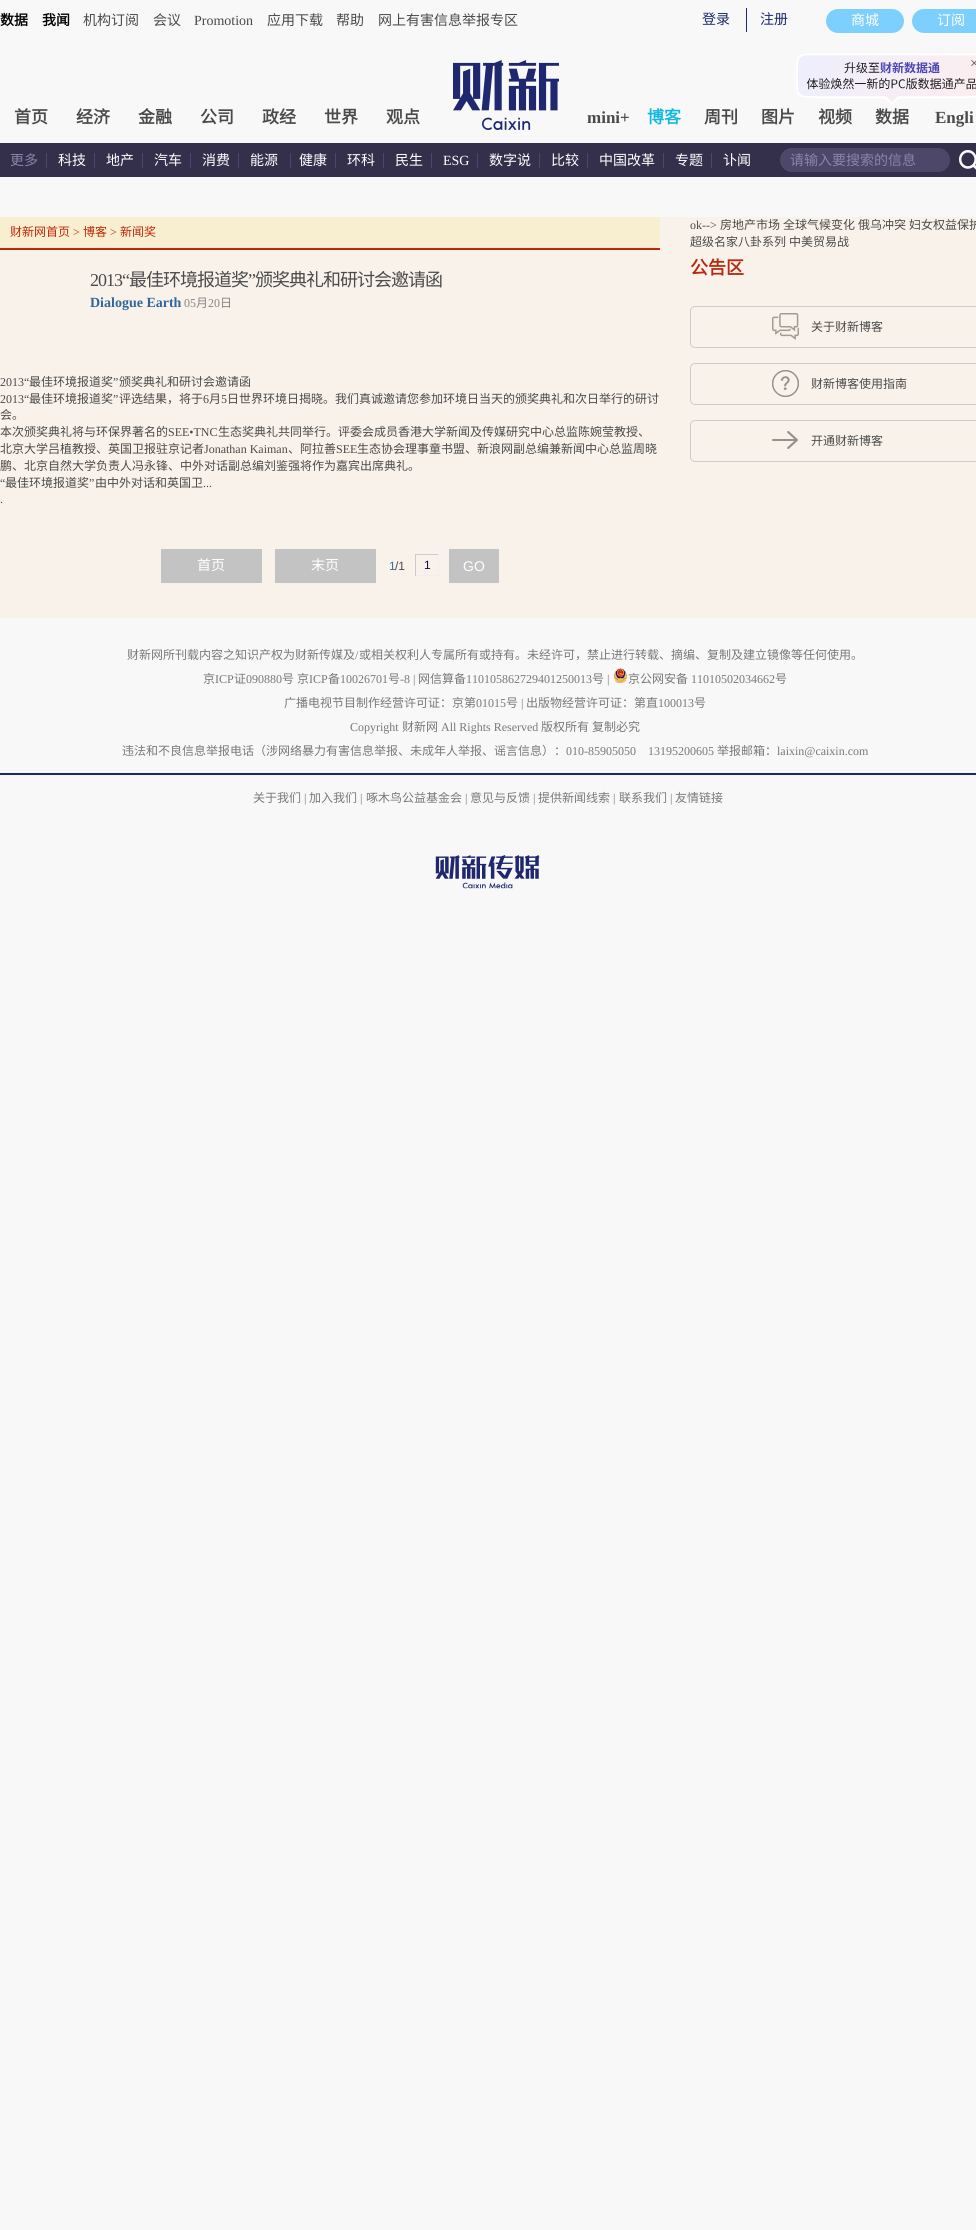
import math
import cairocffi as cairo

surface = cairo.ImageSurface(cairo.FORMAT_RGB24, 976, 2230)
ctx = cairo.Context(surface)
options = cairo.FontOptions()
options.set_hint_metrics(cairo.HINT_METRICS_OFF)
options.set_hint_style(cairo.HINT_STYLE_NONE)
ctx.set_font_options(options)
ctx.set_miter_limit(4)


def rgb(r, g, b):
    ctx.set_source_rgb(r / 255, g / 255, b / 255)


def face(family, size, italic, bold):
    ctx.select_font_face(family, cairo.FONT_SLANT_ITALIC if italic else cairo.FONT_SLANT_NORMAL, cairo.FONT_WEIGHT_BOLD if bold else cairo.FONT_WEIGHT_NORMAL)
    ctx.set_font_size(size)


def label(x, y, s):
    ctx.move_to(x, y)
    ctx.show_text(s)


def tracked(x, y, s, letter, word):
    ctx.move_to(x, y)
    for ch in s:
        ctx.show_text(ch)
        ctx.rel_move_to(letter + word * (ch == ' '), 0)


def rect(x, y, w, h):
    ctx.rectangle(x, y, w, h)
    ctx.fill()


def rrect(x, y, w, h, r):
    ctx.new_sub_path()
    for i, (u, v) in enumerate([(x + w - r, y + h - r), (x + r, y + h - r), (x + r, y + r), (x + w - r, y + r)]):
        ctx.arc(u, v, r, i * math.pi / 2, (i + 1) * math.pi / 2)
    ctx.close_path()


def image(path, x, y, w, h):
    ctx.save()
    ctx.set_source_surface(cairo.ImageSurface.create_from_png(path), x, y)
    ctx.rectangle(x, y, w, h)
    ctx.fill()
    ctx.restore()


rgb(248, 248, 248)
ctx.paint()
face('Noto Sans CJK SC', 14, 0, 1)
rgb(0, 0, 0)
label(0, 25, '数据')
label(42, 25, '我闻')
face('Noto Sans CJK SC', 14, 0, 0)
rgb(74, 74, 74)
label(83, 25, '机构订阅')
label(153, 25, '会议')
face('Liberation Serif', 14, 0, 0)
label(194, 25, 'Promotion')
face('Noto Sans CJK SC', 14, 0, 0)
label(267, 25, '应用下载')
label(336, 25, '帮助')
label(378, 25, '网上有害信息举报专区')
rgb(28, 43, 107)
label(702, 24, '登录')
rect(746, 8, 1, 24)
label(760, 24, '注册')
rgb(125, 208, 253)
rrect(826, 9, 78, 24, 12)
ctx.fill()
rgb(255, 255, 255)
label(851, 25, '商城')
rgb(125, 208, 253)
rrect(912, 9, 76, 24, 12)
ctx.fill()
rgb(255, 255, 255)
label(937, 25, '订阅')
face('Noto Sans CJK SC', 17, 0, 1)
rgb(74, 74, 74)
label(14, 123, '首页')
label(76, 123, '经济')
label(138, 123, '金融')
label(200, 123, '公司')
label(262, 123, '政经')
label(324, 123, '世界')
label(386, 123, '观点')
image('image0.png', 453, 60, 106, 70)
face('Liberation Serif', 17, 0, 1)
label(587, 123, 'mini+')
face('Noto Sans CJK SC', 17, 0, 1)
rgb(16, 184, 221)
label(647, 123, '博客')
rgb(74, 74, 74)
label(704, 123, '周刊')
label(761, 123, '图片')
label(818, 123, '视频')
label(875, 123, '数据')
face('Liberation Serif', 17, 0, 1)
label(935, 123, 'Engli')
rgb(52, 48, 76)
rect(0, 143, 976, 34)
face('Noto Sans CJK SC', 14, 0, 0)
rgb(137, 132, 170)
label(10, 165, '更多')
rgb(76, 70, 107)
rect(46, 153, 1, 15)
rgb(255, 255, 255)
label(58, 165, '科技')
rgb(76, 70, 107)
rect(94, 153, 1, 15)
rgb(255, 255, 255)
label(106, 165, '地产')
rgb(76, 70, 107)
rect(142, 153, 1, 15)
rgb(255, 255, 255)
label(154, 165, '汽车')
rgb(76, 70, 107)
rect(190, 153, 1, 15)
rgb(255, 255, 255)
label(202, 165, '消费')
rgb(76, 70, 107)
rect(238, 153, 1, 15)
rgb(255, 255, 255)
label(250, 165, '能源')
rgb(76, 70, 107)
rect(290, 153, 1, 15)
rgb(255, 255, 255)
label(299, 165, '健康')
rgb(76, 70, 107)
rect(335, 153, 1, 15)
rgb(255, 255, 255)
label(347, 165, '环科')
rgb(76, 70, 107)
rect(383, 153, 1, 15)
rgb(255, 255, 255)
label(395, 165, '民生')
rgb(76, 70, 107)
rect(431, 153, 1, 15)
face('Liberation Serif', 14, 0, 0)
rgb(255, 255, 255)
label(443, 165, 'ESG')
rgb(76, 70, 107)
rect(477, 153, 1, 15)
face('Noto Sans CJK SC', 14, 0, 0)
rgb(255, 255, 255)
label(489, 165, '数字说')
rgb(76, 70, 107)
rect(539, 153, 1, 15)
rgb(255, 255, 255)
label(551, 165, '比较')
rgb(76, 70, 107)
rect(587, 153, 1, 15)
rgb(255, 255, 255)
label(599, 165, '中国改革')
rgb(76, 70, 107)
rect(663, 153, 1, 15)
rgb(255, 255, 255)
label(675, 165, '专题')
rgb(76, 70, 107)
rect(711, 153, 1, 15)
rgb(255, 255, 255)
label(723, 165, '讣闻')
rgb(77, 72, 106)
rrect(780, 148, 170, 24, 12)
ctx.fill()
rgb(137, 132, 170)
label(790, 165, '请输入要搜索的信息')
image('image1.png', 959, 150, 17, 20)
image('image2.png', 796, 53, 180, 51)
face('Liberation Serif', 15, 0, 0)
rgb(74, 74, 74)
label(970, 68, '×')
rgb(248, 242, 234)
rect(0, 217, 976, 401)
rgb(248, 238, 208)
rect(0, 217, 660, 31)
rgb(191, 39, 9)
rect(0, 248, 660, 2)
face('Noto Sans CJK SC', 12, 0, 0)
label(10, 236, '财新网首页')
face('Liberation Serif', 12, 0, 0)
label(73, 236, '>')
face('Noto Sans CJK SC', 12, 0, 0)
label(83, 236, '博客')
face('Liberation Serif', 12, 0, 0)
label(110, 236, '>')
face('Noto Sans CJK SC', 12, 0, 0)
label(120, 236, '新闻奖')
rgb(247, 243, 231)
rect(0, 528, 660, 1)
face('Liberation Serif', 18, 0, 0)
rgb(74, 74, 74)
tracked(90, 286, '2013“', -1, 0)
face('Noto Sans CJK SC', 18, 0, 0)
tracked(129, 286, '最佳环境报道奖', -1, 0)
face('Liberation Serif', 18, 0, 0)
tracked(248, 286, '”', -1, 0)
face('Noto Sans CJK SC', 18, 0, 0)
tracked(255, 286, '颁奖典礼和研讨会邀请函', -1, 0)
face('Liberation Serif', 14, 0, 1)
rgb(51, 102, 153)
label(90, 307, 'Dialogue Earth')
face('Liberation Serif', 12, 0, 0)
rgb(133, 133, 133)
label(184, 307, '05')
face('Noto Sans CJK SC', 12, 0, 0)
label(196, 307, '月')
face('Liberation Serif', 12, 0, 0)
label(208, 307, '20')
face('Noto Sans CJK SC', 12, 0, 0)
label(220, 307, '日')
face('Liberation Serif', 12, 0, 0)
rgb(74, 74, 74)
label(0, 386, '2013“')
face('Noto Sans CJK SC', 12, 0, 0)
label(29, 386, '最佳环境报道奖')
face('Liberation Serif', 12, 0, 0)
label(113, 386, '”')
face('Noto Sans CJK SC', 12, 0, 0)
label(119, 386, '颁奖典礼和研讨会邀请函')
face('Liberation Serif', 12, 0, 0)
label(0, 403, '2013“')
face('Noto Sans CJK SC', 12, 0, 0)
label(29, 403, '最佳环境报道奖')
face('Liberation Serif', 12, 0, 0)
label(113, 403, '”')
face('Noto Sans CJK SC', 12, 0, 0)
label(119, 403, '评选结果，将于')
face('Liberation Serif', 12, 0, 0)
label(203, 403, '6')
face('Noto Sans CJK SC', 12, 0, 0)
label(209, 403, '月')
face('Liberation Serif', 12, 0, 0)
label(221, 403, '5')
face('Noto Sans CJK SC', 12, 0, 0)
label(227, 403, '日世界环境日揭晓。我们真诚邀请您参加环境日当天的颁奖典礼和次日举行的研讨')
label(0, 419, '会。')
label(0, 436, '本次颁奖典礼将与环保界著名的')
face('Liberation Serif', 12, 0, 0)
label(168, 436, 'SEE•TNC')
face('Noto Sans CJK SC', 12, 0, 0)
label(218, 436, '生态奖典礼共同举行。评委会成员香港大学新闻及传媒研究中心总监陈婉莹教授、')
label(0, 453, '北京大学吕植教授、英国卫报驻京记者')
face('Liberation Serif', 12, 0, 0)
label(204, 453, 'Jonathan Kaiman')
face('Noto Sans CJK SC', 12, 0, 0)
label(288, 453, '、阿拉善')
face('Liberation Serif', 12, 0, 0)
label(336, 453, 'SEE')
face('Noto Sans CJK SC', 12, 0, 0)
label(357, 453, '生态协会理事童书盟、新浪网副总编兼新闻中心总监周晓')
label(0, 470, '鹏、北京自然大学负责人冯永锋、中外对话副总编刘鉴强将作为嘉宾出席典礼。')
face('Liberation Serif', 12, 0, 0)
label(0, 487, '“')
face('Noto Sans CJK SC', 12, 0, 0)
label(5, 487, '最佳环境报道奖')
face('Liberation Serif', 12, 0, 0)
label(89, 487, '”')
face('Noto Sans CJK SC', 12, 0, 0)
label(95, 487, '由中外对话和英国卫')
face('Liberation Serif', 12, 0, 0)
label(203, 487, '...')
label(0, 503, '.')
rgb(195, 195, 195)
rect(161, 549, 101, 34)
face('Noto Sans CJK SC', 14, 0, 0)
rgb(255, 255, 255)
label(197, 570, '首页')
rgb(195, 195, 195)
rect(275, 549, 101, 34)
rgb(255, 255, 255)
label(311, 570, '末页')
face('Liberation Sans', 12, 0, 0)
rgb(64, 110, 157)
label(389, 570, '1')
rgb(74, 74, 74)
label(395, 570, '/1')
rgb(204, 204, 204)
rect(415, 554, 24, 1)
rgb(239, 239, 239)
rect(438, 554, 1, 22)
rect(415, 575, 24, 1)
rgb(204, 204, 204)
rect(415, 554, 1, 22)
rgb(23, 14, 69)
label(424, 569, '1')
rgb(195, 195, 195)
rect(449, 549, 50, 34)
face('Liberation Sans', 14, 0, 0)
rgb(255, 255, 255)
label(463, 571, 'GO')
face('Liberation Serif', 12, 0, 0)
rgb(74, 74, 74)
label(690, 229, 'ok-->')
face('Noto Sans CJK SC', 12, 0, 0)
label(720, 229, '房地产市场')
label(783, 229, '全球气候变化')
label(858, 229, '俄乌冲突')
label(909, 229, '妇女权益保护')
label(690, 246, '超级名家八卦系列')
label(789, 246, '中美贸易战')
face('Noto Sans CJK SC', 18, 0, 1)
rgb(184, 41, 14)
label(690, 274, '公告区')
rrect(690.5, 306.5, 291, 41, 4.5)
rgb(204, 204, 204)
ctx.set_line_width(1)
ctx.stroke()
image('image3.png', 772, 313, 27, 27)
face('Noto Sans CJK SC', 12, 0, 0)
rgb(74, 74, 74)
label(811, 331, '关于财新博客')
rrect(690.5, 363.5, 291, 41, 4.5)
rgb(204, 204, 204)
ctx.stroke()
image('image4.png', 772, 370, 27, 27)
rgb(74, 74, 74)
label(811, 388, '财新博客使用指南')
rrect(690.5, 420.5, 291, 41, 4.5)
rgb(204, 204, 204)
ctx.stroke()
image('image5.png', 772, 431, 26, 18)
rgb(74, 74, 74)
label(811, 445, '开通财新博客')
rgb(31, 40, 111)
rect(0, 773, 976, 2)
rgb(121, 120, 120)
label(127, 659, '财新网所刊载内容之知识产权为财新传媒及')
face('Liberation Serif', 12, 0, 0)
label(355, 659, '/')
face('Noto Sans CJK SC', 12, 0, 0)
label(359, 659, '或相关权利人专属所有或持有。未经许可，禁止进行转载、摘编、复制及建立镜像等任何使用。')
label(203, 683, '京')
face('Liberation Serif', 12, 0, 0)
label(215, 683, 'ICP')
face('Noto Sans CJK SC', 12, 0, 0)
label(234, 683, '证')
face('Liberation Serif', 12, 0, 0)
label(246, 683, '090880')
face('Noto Sans CJK SC', 12, 0, 0)
label(282, 683, '号')
label(297, 683, '京')
face('Liberation Serif', 12, 0, 0)
label(309, 683, 'ICP')
face('Noto Sans CJK SC', 12, 0, 0)
label(328, 683, '备')
face('Liberation Serif', 12, 0, 0)
label(340, 683, '10026701')
face('Noto Sans CJK SC', 12, 0, 0)
label(388, 683, '号')
face('Liberation Serif', 12, 0, 0)
label(400, 683, '-8 |')
face('Noto Sans CJK SC', 12, 0, 0)
label(418, 683, '网信算备')
face('Liberation Serif', 12, 0, 0)
label(466, 683, '110105862729401250013')
face('Noto Sans CJK SC', 12, 0, 0)
label(592, 683, '号')
face('Liberation Serif', 12, 0, 0)
label(607, 683, '|')
image('image6.png', 613, 668, 15, 15)
face('Noto Sans CJK SC', 12, 0, 0)
label(628, 683, '京公网安备')
face('Liberation Serif', 12, 0, 0)
label(691, 683, '11010502034662')
face('Noto Sans CJK SC', 12, 0, 0)
label(775, 683, '号')
label(284, 707, '广播电视节目制作经营许可证：京第')
face('Liberation Serif', 12, 0, 0)
label(476, 707, '01015')
face('Noto Sans CJK SC', 12, 0, 0)
label(506, 707, '号')
face('Liberation Serif', 12, 0, 0)
label(521, 707, '|')
face('Noto Sans CJK SC', 12, 0, 0)
label(526, 707, '出版物经营许可证：第直')
face('Liberation Serif', 12, 0, 0)
label(658, 707, '100013')
face('Noto Sans CJK SC', 12, 0, 0)
label(694, 707, '号')
face('Liberation Serif', 12, 0, 0)
label(350, 731, 'Copyright')
face('Noto Sans CJK SC', 12, 0, 0)
label(402, 731, '财新网')
face('Liberation Serif', 12, 0, 0)
label(441, 731, 'All Rights Reserved')
face('Noto Sans CJK SC', 12, 0, 0)
label(541, 731, '版权所有')
label(592, 731, '复制必究')
label(122, 755, '违法和不良信息举报电话（涉网络暴力有害信息举报、未成年人举报、谣言信息）：')
face('Liberation Serif', 12, 0, 0)
label(566, 755, '010-85905050')
label(648, 755, '13195200605')
face('Noto Sans CJK SC', 12, 0, 0)
label(717, 755, '举报邮箱：')
face('Liberation Serif', 12, 0, 0)
label(777, 755, 'laixin@caixin.com')
face('Noto Sans CJK SC', 12, 0, 0)
label(253, 802, '关于我们')
face('Liberation Serif', 12, 0, 0)
label(304, 802, '|')
face('Noto Sans CJK SC', 12, 0, 0)
label(309, 802, '加入我们')
face('Liberation Serif', 12, 0, 0)
label(360, 802, '|')
face('Noto Sans CJK SC', 12, 0, 0)
label(366, 802, '啄木鸟公益基金会')
face('Liberation Serif', 12, 0, 0)
label(465, 802, '|')
face('Noto Sans CJK SC', 12, 0, 0)
label(470, 802, '意见与反馈')
face('Liberation Serif', 12, 0, 0)
label(533, 802, '|')
face('Noto Sans CJK SC', 12, 0, 0)
label(538, 802, '提供新闻线索')
face('Liberation Serif', 12, 0, 0)
label(613, 802, '|')
face('Noto Sans CJK SC', 12, 0, 0)
label(619, 802, '联系我们')
face('Liberation Serif', 12, 0, 0)
label(670, 802, '|')
face('Noto Sans CJK SC', 12, 0, 0)
label(675, 802, '友情链接')
image('image7.png', 435, 855, 105, 34)
surface.write_to_png('render.png')
